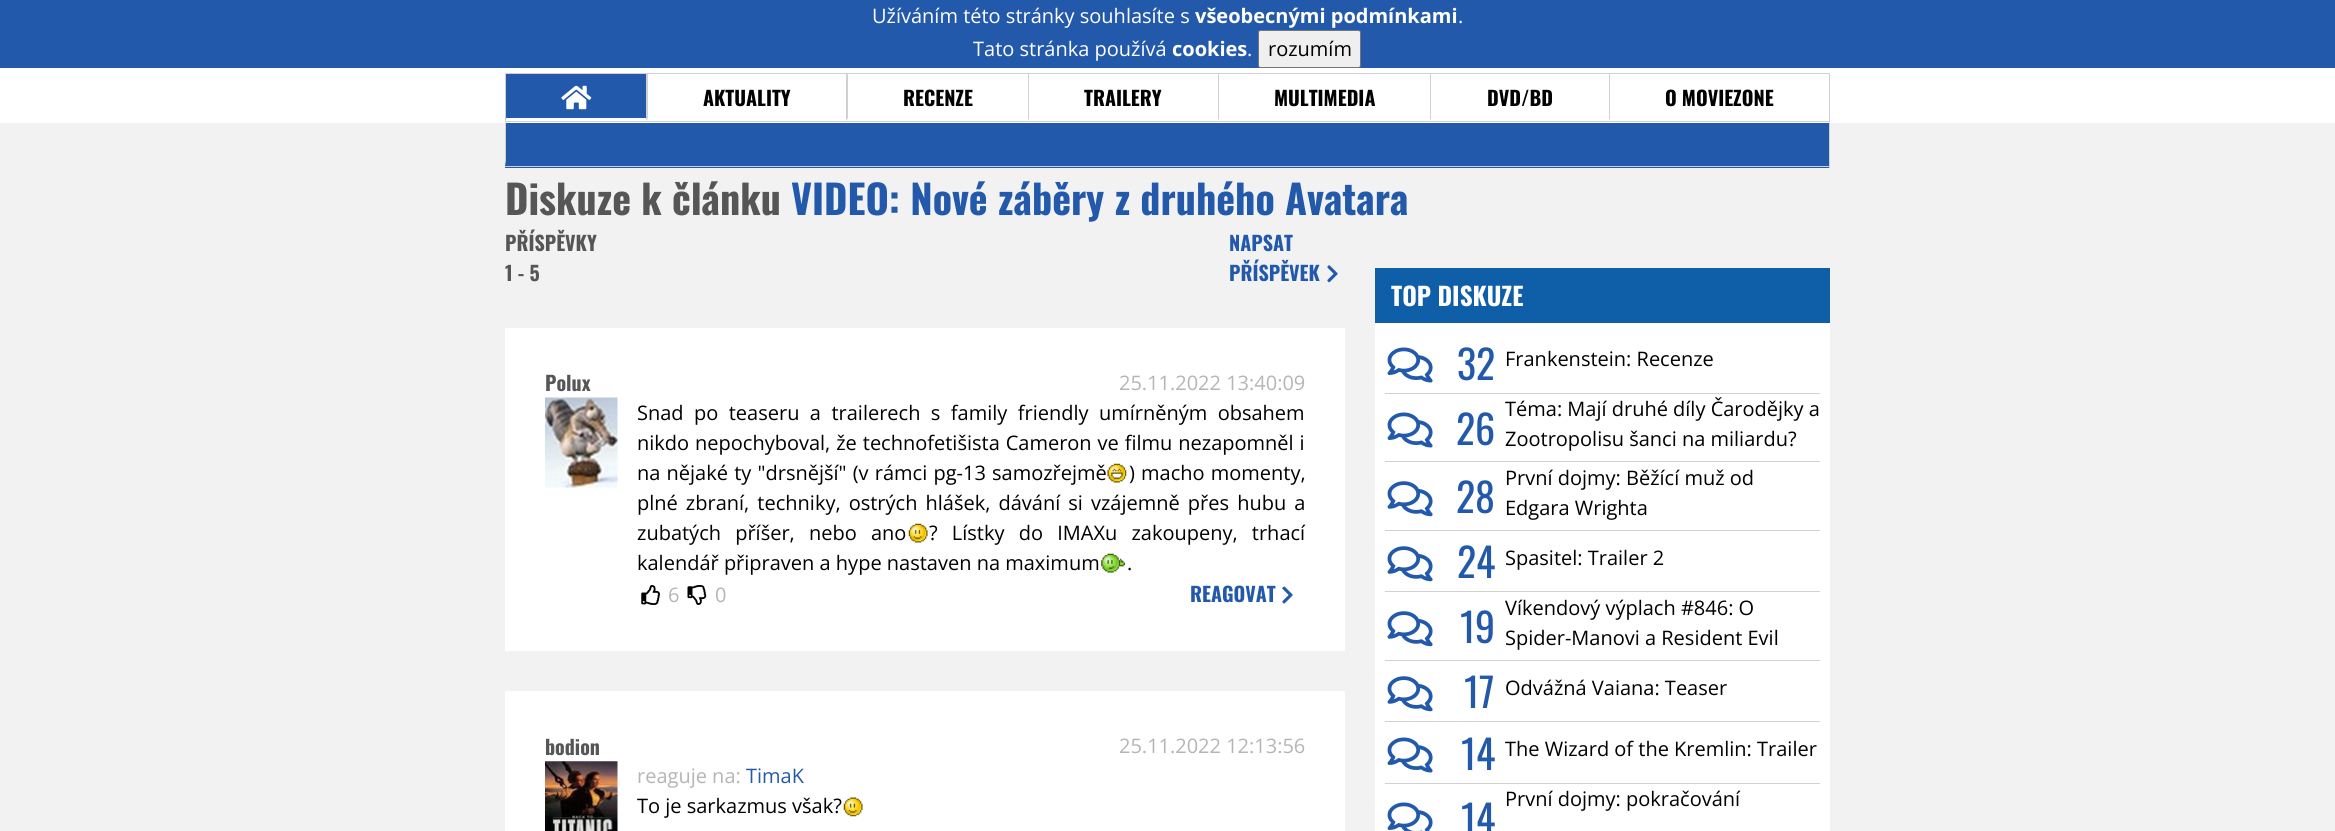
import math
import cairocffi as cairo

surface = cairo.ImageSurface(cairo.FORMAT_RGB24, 2335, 831)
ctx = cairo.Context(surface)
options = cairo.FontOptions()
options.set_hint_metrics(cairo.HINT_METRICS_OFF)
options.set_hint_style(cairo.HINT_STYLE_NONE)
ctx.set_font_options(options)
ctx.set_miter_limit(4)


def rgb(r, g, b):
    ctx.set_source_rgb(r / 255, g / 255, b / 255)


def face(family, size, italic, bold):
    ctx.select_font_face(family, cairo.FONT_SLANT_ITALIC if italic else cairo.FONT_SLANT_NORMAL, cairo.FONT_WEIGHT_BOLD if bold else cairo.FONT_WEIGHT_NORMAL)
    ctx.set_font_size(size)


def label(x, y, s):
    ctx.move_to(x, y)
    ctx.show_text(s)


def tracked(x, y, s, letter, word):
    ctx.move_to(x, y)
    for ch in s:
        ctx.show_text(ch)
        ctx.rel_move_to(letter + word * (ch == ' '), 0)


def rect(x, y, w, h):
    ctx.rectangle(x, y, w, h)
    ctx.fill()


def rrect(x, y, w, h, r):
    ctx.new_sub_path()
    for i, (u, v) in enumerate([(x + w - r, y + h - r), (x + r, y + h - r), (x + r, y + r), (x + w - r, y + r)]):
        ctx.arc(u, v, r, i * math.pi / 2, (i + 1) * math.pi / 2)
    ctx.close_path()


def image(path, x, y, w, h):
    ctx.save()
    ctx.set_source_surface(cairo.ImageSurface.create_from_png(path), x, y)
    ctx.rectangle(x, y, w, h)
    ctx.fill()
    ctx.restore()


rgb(242, 242, 242)
ctx.paint()
rgb(35, 89, 171)
rect(0, 0, 2335, 68)
face('Open Sans', 20, 0, 0)
rgb(255, 255, 255)
label(872, 23, 'Užíváním této stránky souhlasíte s')
face('Open Sans', 20, 0, 1)
label(1195, 23, 'všeobecnými podmínkami')
face('Open Sans', 20, 0, 0)
label(1458, 23, '.')
label(973, 56, 'Tato stránka používá')
face('Open Sans', 20, 0, 1)
label(1172, 56, 'cookies')
face('Open Sans', 20, 0, 0)
label(1247, 56, '.')
rgb(239, 239, 239)
rrect(1258.5, 30.5, 102, 37, 2)
ctx.fill_preserve()
rgb(118, 118, 118)
ctx.set_line_width(1)
ctx.stroke()
rgb(0, 0, 0)
label(1268, 56, 'rozumím')
rgb(255, 255, 255)
rect(0, 68, 2335, 55)
rgb(209, 209, 209)
rect(505, 73, 1325, 1)
rect(1829, 73, 1, 95)
rect(505, 121, 1325, 1)
rgb(35, 89, 171)
rect(505, 74, 141, 47)
rgb(255, 255, 255)
ctx.new_path()
ctx.move_to(646, 121)
ctx.line_to(505, 121)
ctx.line_to(506, 118)
ctx.line_to(646, 118)
ctx.close_path()
ctx.fill()
rgb(209, 209, 209)
ctx.new_path()
ctx.move_to(505, 121)
ctx.line_to(505, 74)
ctx.line_to(506, 74)
ctx.line_to(506, 118)
ctx.close_path()
ctx.fill()
image('image0.png', 561, 85, 31, 25)
ctx.new_path()
ctx.move_to(646, 121)
ctx.line_to(646, 74)
ctx.line_to(648, 74)
ctx.line_to(648, 118)
ctx.close_path()
ctx.fill()
face('Oswald', 20, 0, 1)
rgb(0, 0, 0)
label(703, 106, 'AKTUALITY')
rgb(209, 209, 209)
ctx.new_path()
ctx.move_to(846, 121)
ctx.line_to(846, 74)
ctx.line_to(848, 74)
ctx.line_to(848, 118)
ctx.close_path()
ctx.fill()
rgb(0, 0, 0)
label(903, 106, 'RECENZE')
rgb(209, 209, 209)
ctx.new_path()
ctx.move_to(1028, 121)
ctx.line_to(1028, 74)
ctx.line_to(1029, 74)
ctx.line_to(1029, 118)
ctx.close_path()
ctx.fill()
rgb(0, 0, 0)
label(1084, 106, 'TRAILERY')
rgb(209, 209, 209)
ctx.new_path()
ctx.move_to(1218, 121)
ctx.line_to(1218, 74)
ctx.line_to(1219, 74)
ctx.line_to(1219, 118)
ctx.close_path()
ctx.fill()
rgb(0, 0, 0)
label(1274, 106, 'MULTIMEDIA')
rgb(209, 209, 209)
ctx.new_path()
ctx.move_to(1430, 121)
ctx.line_to(1430, 74)
ctx.line_to(1431, 74)
ctx.line_to(1431, 118)
ctx.close_path()
ctx.fill()
rgb(0, 0, 0)
label(1487, 106, 'DVD/BD')
rgb(209, 209, 209)
ctx.new_path()
ctx.move_to(1609, 121)
ctx.line_to(1609, 74)
ctx.line_to(1610, 74)
ctx.line_to(1610, 118)
ctx.close_path()
ctx.fill()
rgb(0, 0, 0)
label(1665, 106, 'O MOVIEZONE')
rgb(35, 89, 171)
rect(505, 123, 1324, 45)
rgb(209, 209, 209)
rect(505, 166, 1325, 1)
ctx.new_path()
ctx.move_to(505, 166)
ctx.line_to(505, 122)
ctx.line_to(506, 122)
ctx.line_to(506, 161)
ctx.close_path()
ctx.fill()
face('Oswald', 40, 0, 1)
rgb(86, 86, 86)
label(505, 215, 'Diskuze k článku')
rgb(35, 89, 171)
label(791, 215, 'VIDEO: Nové záběry z druhého Avatara')
face('Oswald', 20, 0, 1)
rgb(86, 86, 86)
label(505, 251, 'PŘÍSPĚVKY')
label(505, 281, '1 - 5')
rgb(35, 89, 171)
label(1229, 251, 'NAPSAT')
label(1229, 281, 'PŘÍSPĚVEK')
image('image1.png', 1327, 265, 11, 18)
rgb(255, 255, 255)
rect(505, 328, 840, 323)
rgb(86, 86, 86)
label(545, 391, 'Polux')
image('image2.png', 545, 397, 73, 91)
face('Open Sans', 20, 0, 0)
rgb(181, 181, 181)
label(1119, 390, '25.11.2022 13:40:09')
rgb(0, 0, 0)
tracked(637, 420, 'Snad po teaseru a trailerech s family friendly umírněným obsahem', 0, 5.25)
tracked(637, 450, 'nikdo nepochyboval, že technofetišista Cameron ve filmu nezapomněl i', 0, 0.75)
tracked(637, 480, 'na nějaké ty "drsnější" (v rámci pg-13 samozřejmě', 0, 1)
image('image3.png', 1107, 463, 20, 20)
tracked(1129, 480, ') macho momenty,', 0, 1)
tracked(637, 510, 'plné zbraní, techniky, ostrých hlášek, dávání si vzájemně přes hubu a', 0, 2.9)
tracked(637, 540, 'zubatých příšer, nebo ano', 0, 9)
image('image4.png', 908, 523, 20, 20)
tracked(929, 540, '? Lístky do IMAXu zakoupeny, trhací', 0, 9)
label(637, 570, 'kalendář připraven a hype nastaven na maximum')
image('image5.png', 1101, 553, 24, 20)
label(1127, 570, '.')
image('image6.png', 641, 585, 19, 20)
rgb(181, 181, 181)
label(668, 602, '6')
image('image7.png', 687, 585, 20, 20)
label(715, 602, '0')
face('Oswald', 20, 0, 1)
rgb(35, 89, 171)
label(1190, 602, 'REAGOVAT')
image('image8.png', 1282, 586, 11, 18)
rgb(255, 255, 255)
rect(505, 691, 840, 140)
rgb(86, 86, 86)
label(545, 755, 'bodion')
image('image9.png', 545, 761, 73, 70)
face('Open Sans', 20, 0, 0)
rgb(181, 181, 181)
label(1119, 753, '25.11.2022 12:13:56')
label(637, 783, 'reaguje na:')
rgb(35, 89, 171)
label(746, 783, 'TimaK')
rgb(0, 0, 0)
label(637, 813, 'To je sarkazmus však?')
image('image10.png', 843, 797, 20, 20)
rgb(255, 255, 255)
rect(1375, 323, 455, 508)
rgb(15, 94, 168)
rect(1375, 268, 455, 55)
face('Oswald', 25, 0, 1)
rgb(255, 255, 255)
label(1391, 306, 'TOP DISKUZE')
rgb(209, 209, 209)
rect(1385, 393, 435, 1)
image('image11.png', 1387, 347, 46, 36)
face('Oswald', 40, 0, 0)
rgb(35, 89, 171)
label(1457, 380, '32')
face('Open Sans', 20, 0, 0)
rgb(0, 0, 0)
label(1505, 366, 'Frankenstein: Recenze')
rgb(209, 209, 209)
rect(1385, 461, 435, 1)
image('image11.png', 1387, 412, 46, 36)
face('Oswald', 40, 0, 0)
rgb(35, 89, 171)
label(1456, 445, '26')
face('Open Sans', 20, 0, 0)
rgb(0, 0, 0)
label(1505, 416, 'Téma: Mají druhé díly Čarodějky a')
label(1505, 446, 'Zootropolisu šanci na miliardu?')
rgb(209, 209, 209)
rect(1385, 530, 435, 1)
image('image12.png', 1387, 481, 46, 36)
face('Oswald', 40, 0, 0)
rgb(35, 89, 171)
label(1456, 513, '28')
face('Open Sans', 20, 0, 0)
rgb(0, 0, 0)
label(1505, 485, 'První dojmy: Běžící muž od')
label(1505, 515, 'Edgara Wrighta')
rgb(209, 209, 209)
rect(1385, 591, 435, 1)
image('image12.png', 1387, 546, 46, 36)
face('Oswald', 40, 0, 0)
rgb(35, 89, 171)
label(1457, 578, '24')
face('Open Sans', 20, 0, 0)
rgb(0, 0, 0)
label(1505, 565, 'Spasitel: Trailer 2')
rgb(209, 209, 209)
rect(1385, 660, 435, 1)
image('image12.png', 1387, 611, 46, 36)
face('Oswald', 40, 0, 0)
rgb(35, 89, 171)
label(1460, 643, '19')
face('Open Sans', 20, 0, 0)
rgb(0, 0, 0)
label(1505, 615, 'Víkendový výplach #846: O')
label(1505, 645, 'Spider-Manovi a Resident Evil')
rgb(209, 209, 209)
rect(1385, 721, 435, 1)
image('image12.png', 1387, 676, 46, 36)
face('Oswald', 40, 0, 0)
rgb(35, 89, 171)
label(1464, 708, '17')
face('Open Sans', 20, 0, 0)
rgb(0, 0, 0)
label(1505, 695, 'Odvážná Vaiana: Teaser')
rgb(209, 209, 209)
rect(1385, 783, 435, 1)
image('image11.png', 1387, 737, 46, 36)
face('Oswald', 40, 0, 0)
rgb(35, 89, 171)
label(1461, 770, '14')
face('Open Sans', 20, 0, 0)
rgb(0, 0, 0)
label(1505, 756, 'The Wizard of the Kremlin: Trailer')
image('image13.png', 1387, 802, 46, 29)
face('Oswald', 40, 0, 0)
rgb(35, 89, 171)
label(1461, 835, '14')
face('Open Sans', 20, 0, 0)
rgb(0, 0, 0)
label(1505, 806, 'První dojmy: pokračování')
surface.write_to_png('render.png')
